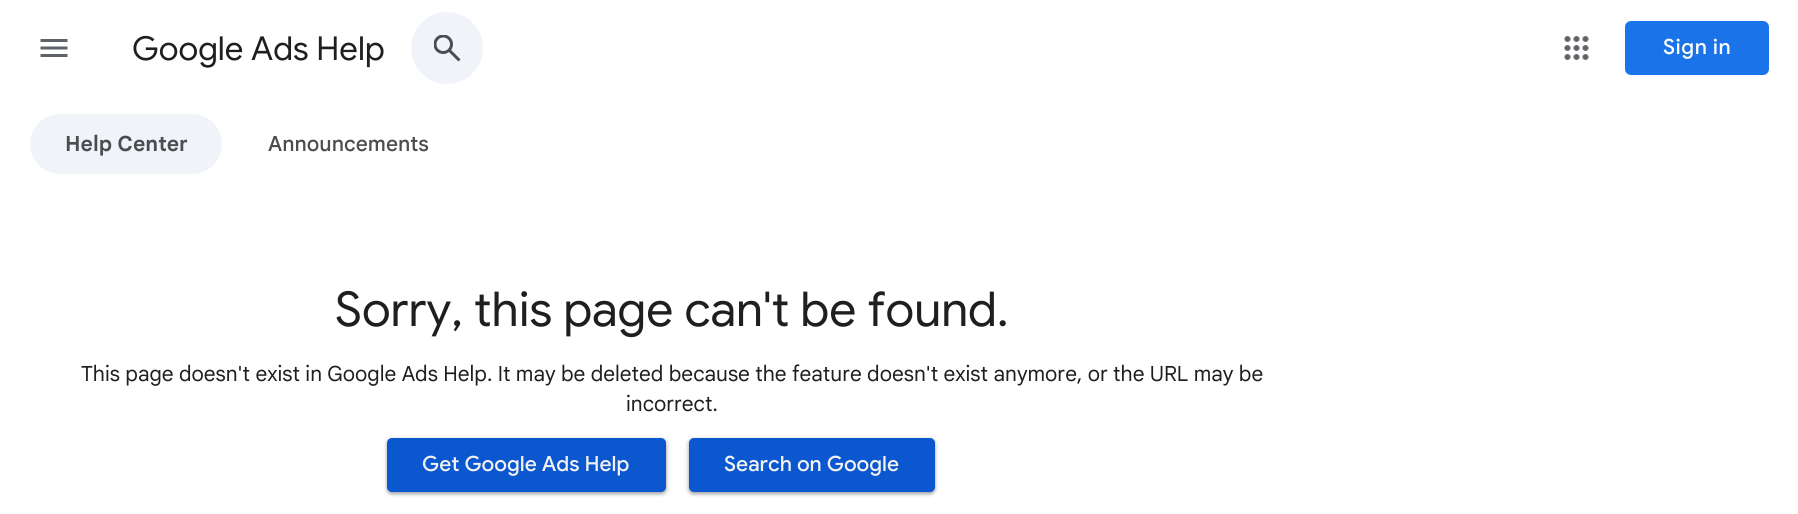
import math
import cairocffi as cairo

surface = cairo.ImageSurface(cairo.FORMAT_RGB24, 1798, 514)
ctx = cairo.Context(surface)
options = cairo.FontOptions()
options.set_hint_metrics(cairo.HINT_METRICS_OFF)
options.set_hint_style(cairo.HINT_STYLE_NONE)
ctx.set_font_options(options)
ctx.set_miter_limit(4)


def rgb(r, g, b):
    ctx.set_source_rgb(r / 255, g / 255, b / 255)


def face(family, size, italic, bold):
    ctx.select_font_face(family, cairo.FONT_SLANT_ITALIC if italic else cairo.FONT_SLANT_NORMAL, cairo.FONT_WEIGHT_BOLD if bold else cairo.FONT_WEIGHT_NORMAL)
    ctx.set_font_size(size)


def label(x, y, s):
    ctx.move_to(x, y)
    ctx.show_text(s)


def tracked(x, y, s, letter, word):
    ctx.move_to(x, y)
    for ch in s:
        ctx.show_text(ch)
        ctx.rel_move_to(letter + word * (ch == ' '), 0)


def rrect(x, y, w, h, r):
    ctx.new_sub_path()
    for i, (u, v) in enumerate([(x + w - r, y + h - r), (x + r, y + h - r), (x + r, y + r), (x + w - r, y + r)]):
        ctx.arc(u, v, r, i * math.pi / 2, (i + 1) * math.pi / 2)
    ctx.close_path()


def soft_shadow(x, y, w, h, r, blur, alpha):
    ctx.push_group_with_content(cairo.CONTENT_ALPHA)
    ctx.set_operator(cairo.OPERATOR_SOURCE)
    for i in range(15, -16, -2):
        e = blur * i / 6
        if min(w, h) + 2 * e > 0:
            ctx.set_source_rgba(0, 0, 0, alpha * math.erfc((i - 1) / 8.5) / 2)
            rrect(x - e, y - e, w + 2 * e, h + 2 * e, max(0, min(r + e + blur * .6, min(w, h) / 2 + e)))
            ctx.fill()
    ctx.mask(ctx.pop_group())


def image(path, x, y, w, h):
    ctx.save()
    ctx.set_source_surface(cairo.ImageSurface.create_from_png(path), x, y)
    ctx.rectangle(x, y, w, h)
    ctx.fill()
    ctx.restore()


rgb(255, 255, 255)
ctx.paint()
image('image0.png', 40, 39, 28, 18)
face('Google Sans', 33, 0, 0)
rgb(31, 31, 31)
label(132, 60, 'Google Ads Help')
rgb(240, 244, 249)
ctx.new_path()
ctx.arc(447, 48, 36, 0, 2 * math.pi)
ctx.fill()
image('image1.png', 434, 35, 27, 27)
image('image2.png', 1564, 36, 25, 24)
rgb(26, 115, 232)
rrect(1625, 21, 144, 54, 6)
ctx.fill()
face('Google Sans Medium', 21, 0, 0)
rgb(255, 255, 255)
tracked(1663, 54, 'Sign in', 0.5, 0)
rgb(240, 244, 249)
rrect(30, 114, 192, 60, 30)
ctx.fill()
face('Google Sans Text', 21, 0, 1)
rgb(76, 77, 80)
label(65, 151, 'Help Center')
face('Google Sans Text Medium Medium', 21, 0, 0)
label(268, 151, 'Announcements')
face('Google Sans', 48, 0, 0)
rgb(31, 31, 31)
label(335, 326, 'Sorry, this page can\'t be found.')
face('Google Sans Text', 21, 0, 0)
label(81, 381, 'This page doesn\'t exist in Google Ads Help. It may be deleted because the feature doesn\'t exist anymore, or the URL may be')
label(626, 411, 'incorrect.')
rgb(48, 48, 48)
soft_shadow(386, 438, 282, 57, 6, 2, 0.15)
soft_shadow(387, 440, 279, 54, 5, 1.5, 0.3)
rgb(11, 87, 208)
rrect(387, 438, 279, 54, 5)
ctx.fill()
face('Google Sans Medium', 21, 0, 0)
rgb(242, 242, 242)
label(422, 471, 'Get Google Ads Help')
rgb(48, 48, 48)
soft_shadow(687, 438, 249, 57, 6, 2, 0.15)
soft_shadow(689, 440, 246, 54, 5, 1.5, 0.3)
rgb(11, 87, 208)
rrect(689, 438, 246, 54, 5)
ctx.fill()
rgb(242, 242, 242)
label(724, 471, 'Search on Google')
surface.write_to_png('render.png')
